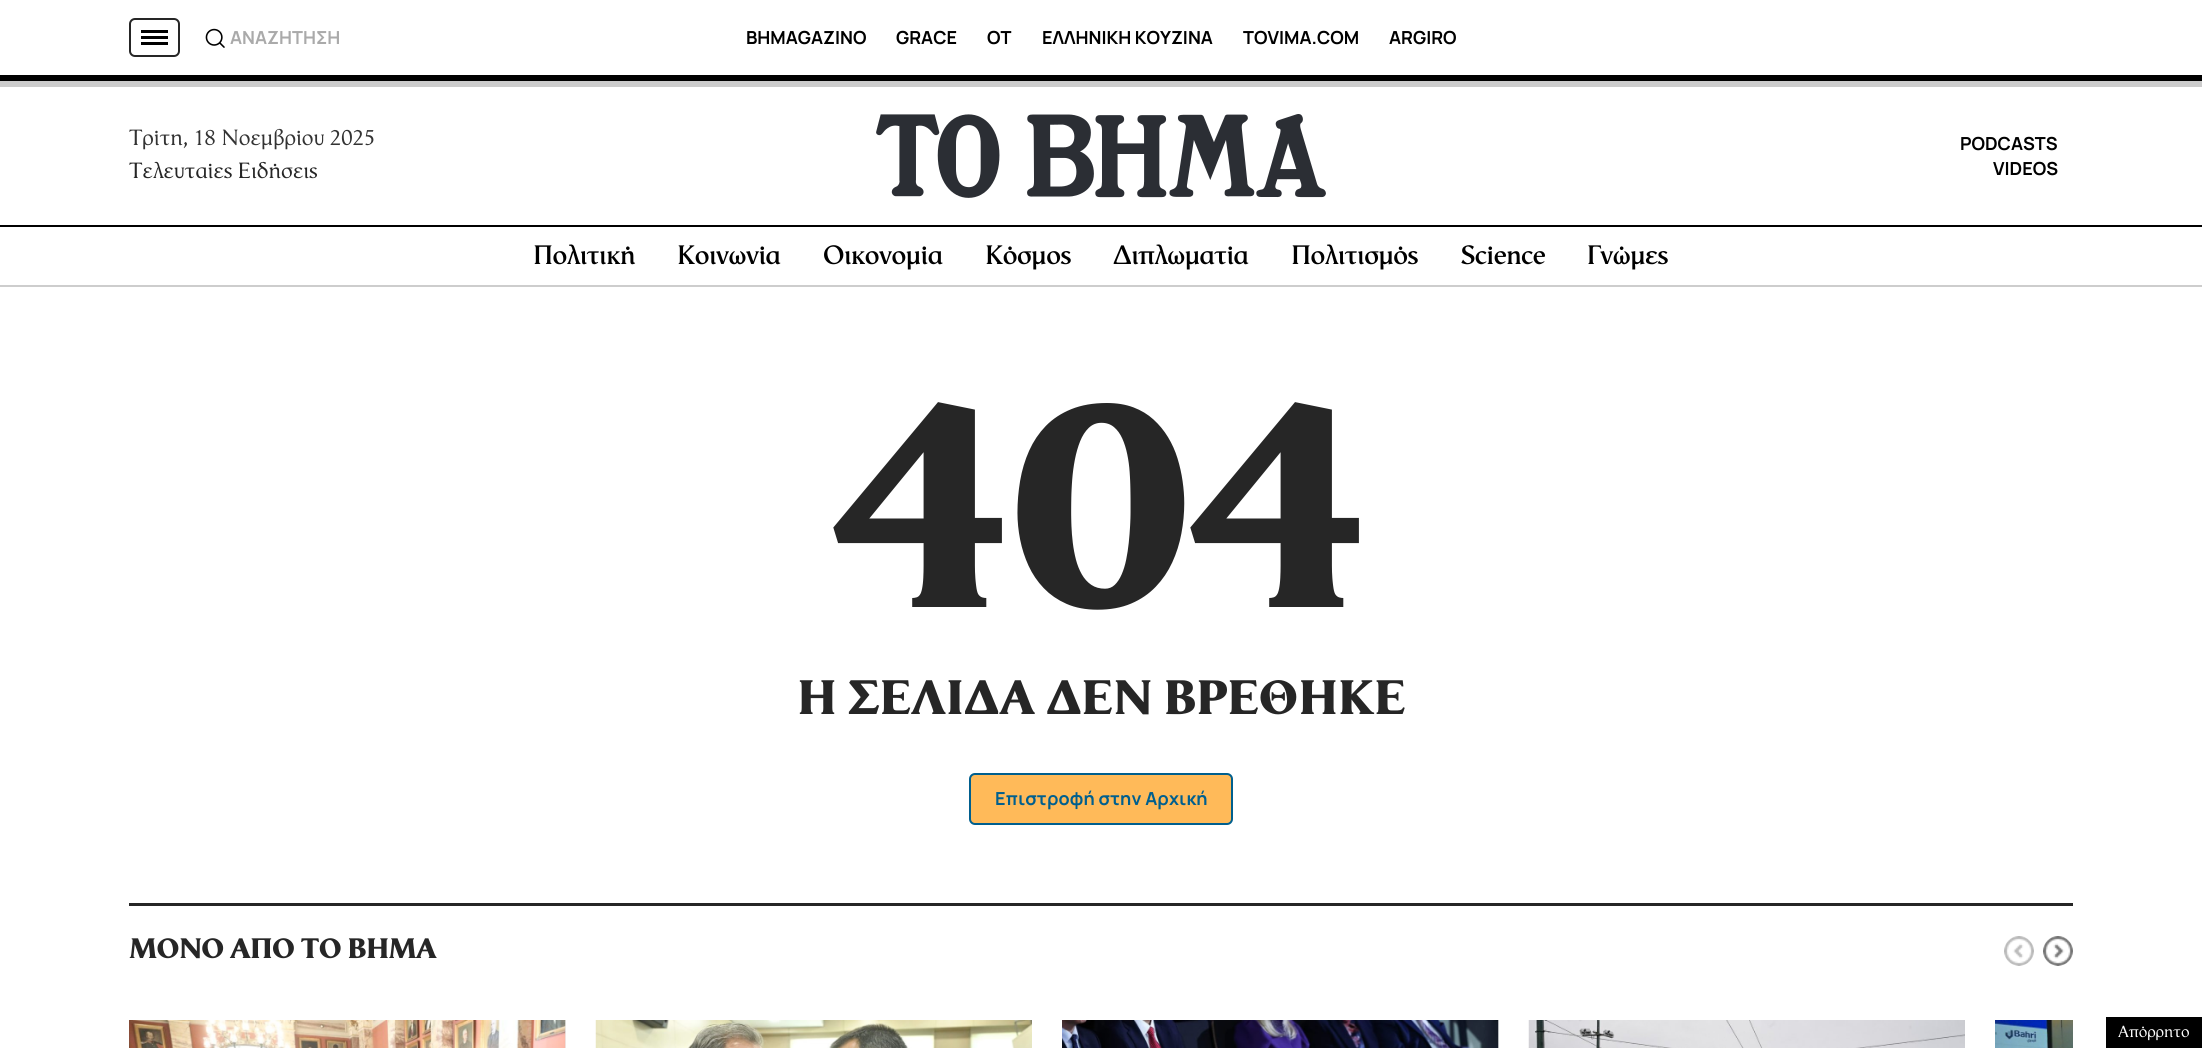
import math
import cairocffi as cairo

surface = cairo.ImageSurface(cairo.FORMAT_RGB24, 2202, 1048)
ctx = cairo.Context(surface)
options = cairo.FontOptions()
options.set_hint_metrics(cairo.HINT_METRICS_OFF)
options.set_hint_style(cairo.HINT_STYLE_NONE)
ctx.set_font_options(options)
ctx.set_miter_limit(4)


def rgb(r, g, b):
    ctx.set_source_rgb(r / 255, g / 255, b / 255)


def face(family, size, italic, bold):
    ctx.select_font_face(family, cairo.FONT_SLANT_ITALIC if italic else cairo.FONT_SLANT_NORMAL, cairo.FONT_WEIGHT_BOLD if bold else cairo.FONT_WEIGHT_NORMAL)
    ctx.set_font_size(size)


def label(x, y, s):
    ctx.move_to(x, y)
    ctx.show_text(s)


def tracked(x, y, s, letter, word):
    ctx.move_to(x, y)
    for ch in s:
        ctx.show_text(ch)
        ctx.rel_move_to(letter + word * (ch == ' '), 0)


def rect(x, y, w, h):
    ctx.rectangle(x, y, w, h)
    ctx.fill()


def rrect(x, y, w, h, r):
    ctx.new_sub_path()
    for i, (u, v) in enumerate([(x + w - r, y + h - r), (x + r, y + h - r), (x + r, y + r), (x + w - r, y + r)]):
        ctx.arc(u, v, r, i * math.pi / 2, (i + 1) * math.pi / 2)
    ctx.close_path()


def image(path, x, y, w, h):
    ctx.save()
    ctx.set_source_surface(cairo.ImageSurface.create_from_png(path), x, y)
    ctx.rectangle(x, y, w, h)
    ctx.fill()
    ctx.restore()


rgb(255, 255, 255)
ctx.paint()
rgb(0, 0, 0)
rect(0, 75, 2202, 6)
rrect(130, 19, 49, 37, 5)
rgb(38, 38, 38)
ctx.stroke()
rgb(0, 0, 0)
rect(141, 30, 27, 3)
rect(141, 36, 27, 3)
rect(141, 42, 27, 3)
image('image0.png', 205, 28, 20, 20)
face('Manrope', 18, 0, 1)
rgb(170, 170, 170)
label(230, 44, 'ΑΝΑΖΗΤΗΣΗ')
rgb(0, 0, 0)
label(746, 44, 'BHMAGAZINO')
label(896, 44, 'GRACE')
label(987, 44, 'OT')
label(1042, 44, 'ΕΛΛΗΝΙΚΗ ΚΟΥΖΙΝΑ')
label(1243, 44, 'TOVIMA.COM')
label(1389, 44, 'ARGIRO')
rgb(204, 204, 204)
rect(0, 81, 2202, 6)
rgb(0, 0, 0)
rect(0, 225, 2202, 2)
face('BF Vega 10', 22.5, 0, 0)
rgb(51, 51, 51)
label(129, 145, 'Τρίτη, 18 Νοεμβρίου 2025')
rgb(38, 38, 38)
label(129, 178, 'Τελευταίες Ειδήσεις')
image('image1.png', 876, 114, 450, 84)
face('Manrope', 18, 0, 1)
rgb(0, 0, 0)
label(1960, 150, 'PODCASTS')
label(1993, 175, 'VIDEOS')
face('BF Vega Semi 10', 27, 0, 1)
tracked(533, 264, 'Πολιτική', -0.5, 0)
tracked(677, 264, 'Κοινωνία', -0.5, 0)
tracked(823, 264, 'Οικονομία', -0.5, 0)
tracked(985, 264, 'Κόσμος', -0.5, 0)
tracked(1113, 264, 'Διπλωματία', -0.5, 0)
tracked(1291, 264, 'Πολιτισμός', -0.5, 0)
tracked(1461, 264, 'Science', -0.5, 0)
tracked(1587, 264, 'Γνώμες', -0.5, 0)
rgb(205, 205, 205)
rect(0, 285, 2202, 2)
face('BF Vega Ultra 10', 300, 0, 0)
rgb(38, 38, 38)
label(833, 607, '404')
face('BF Vega Ultra 10', 48.9, 0, 0)
label(797, 714, 'Η ΣΕΛΙΔΑ ΔΕΝ ΒΡΕΘΗΚΕ')
rgb(255, 186, 89)
rrect(970, 774, 262, 50, 5)
ctx.fill_preserve()
rgb(0, 95, 142)
ctx.stroke()
face('Manrope', 18, 0, 1)
tracked(995, 805, 'Επιστροφή στην Αρχική', 0.1, 0)
rgb(38, 38, 38)
rect(129, 903, 1944, 3)
face('BF Vega Ultra 10', 28.5, 0, 0)
tracked(129, 958, 'ΜΟΝΟ ΑΠΟ ΤΟ ΒΗΜΑ', -0.5, 0)
image('image2.png', 2004, 936, 30, 30)
image('image3.png', 2043, 936, 30, 30)
rgb(238, 238, 238)
rect(565, 1020, 1, 28)
image('image4.png', 129, 1020, 437, 28)
image('image5.png', 595, 1020, 437, 28)
rect(1498, 1020, 1, 28)
image('image6.png', 1062, 1020, 437, 28)
image('image7.png', 1528, 1020, 437, 28)
image('image8.png', 1995, 1020, 78, 28)
rgb(0, 0, 0)
rect(2106, 1017, 96, 31)
face('BF Vega 10', 16.5, 0, 0)
rgb(255, 255, 255)
label(2118, 1037, 'Απόρρητο')
surface.write_to_png('render.png')
